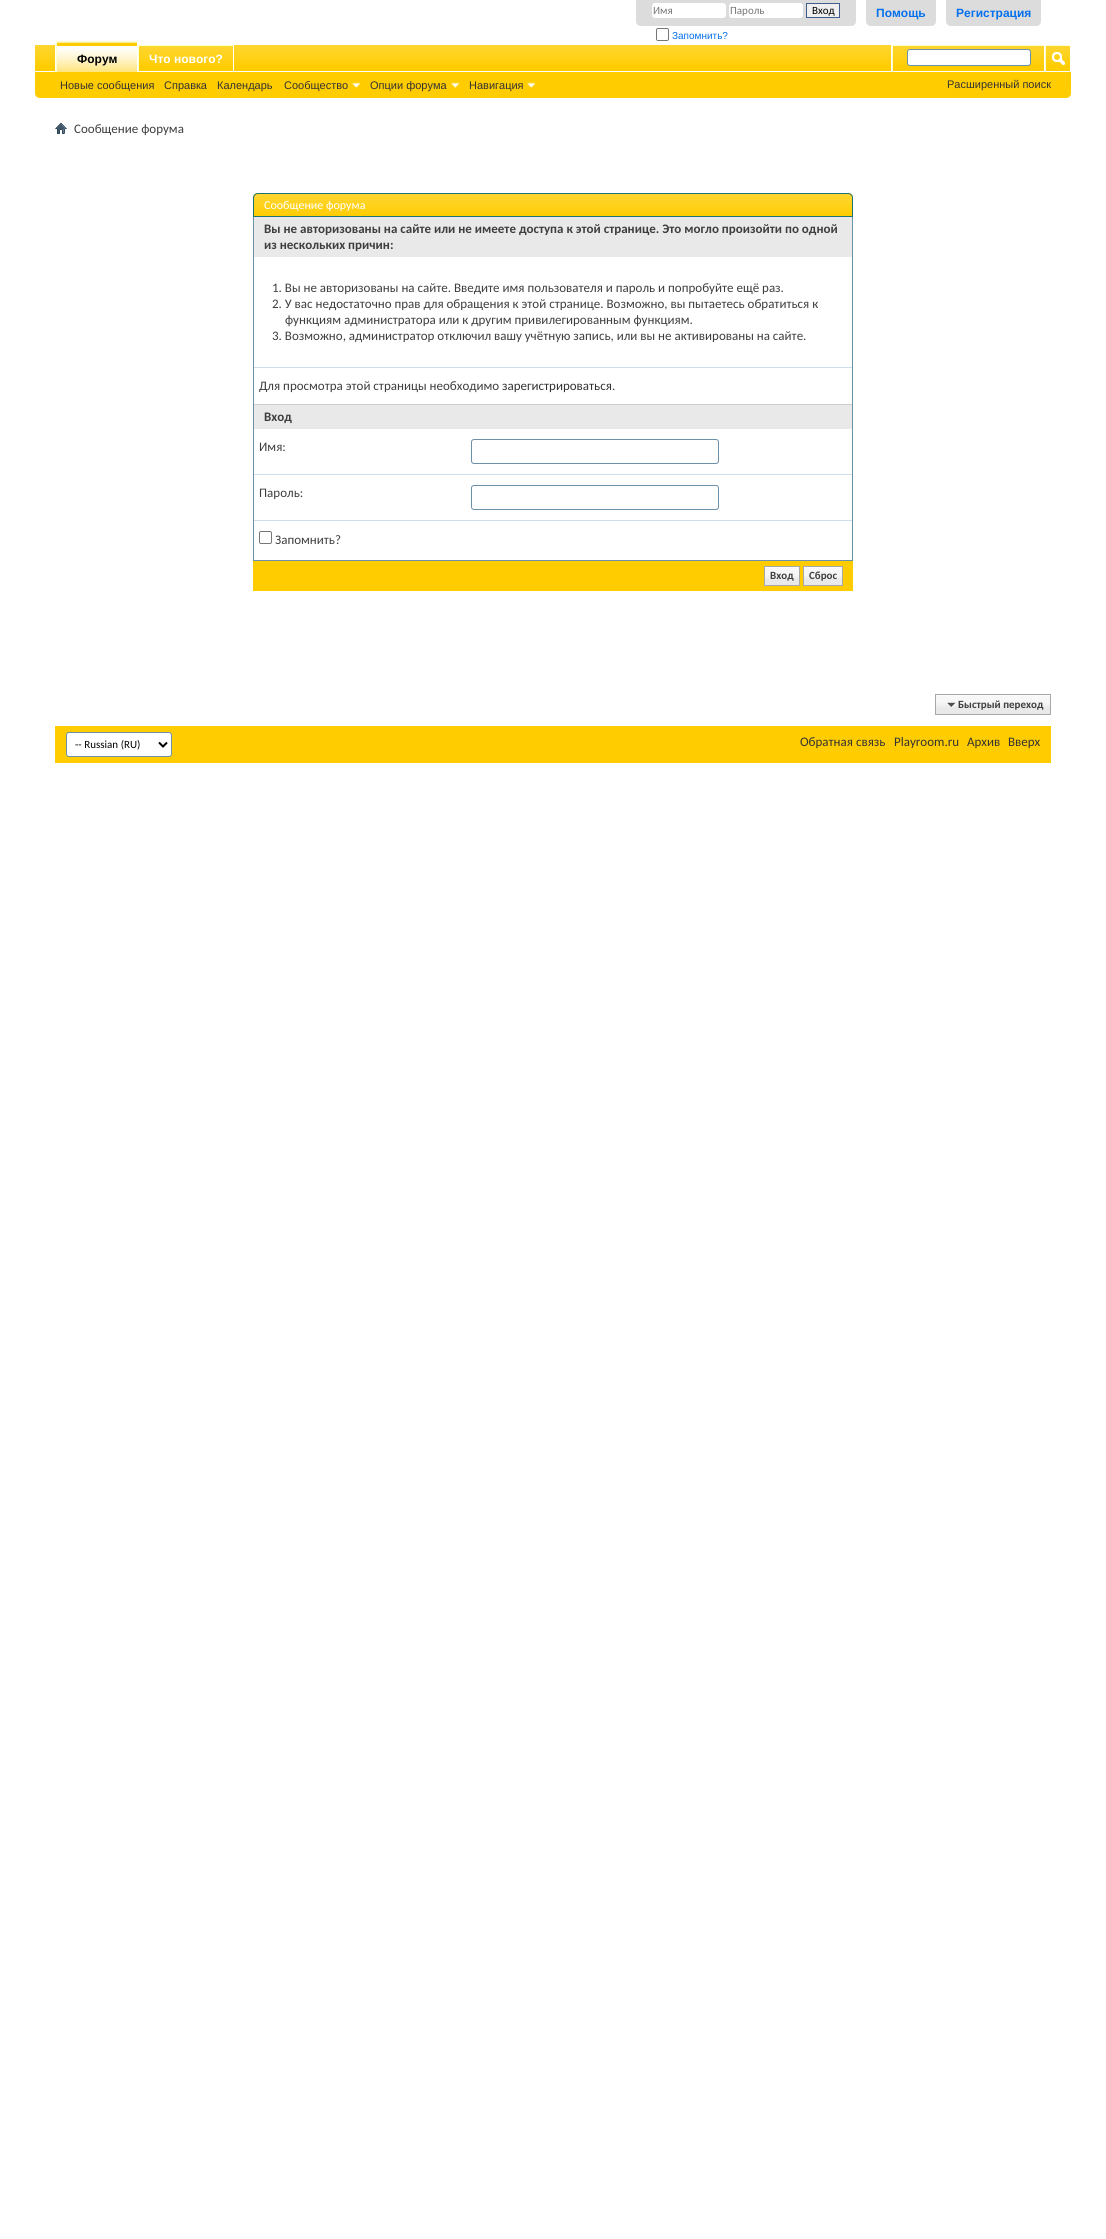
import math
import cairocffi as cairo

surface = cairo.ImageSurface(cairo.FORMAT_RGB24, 1106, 2239)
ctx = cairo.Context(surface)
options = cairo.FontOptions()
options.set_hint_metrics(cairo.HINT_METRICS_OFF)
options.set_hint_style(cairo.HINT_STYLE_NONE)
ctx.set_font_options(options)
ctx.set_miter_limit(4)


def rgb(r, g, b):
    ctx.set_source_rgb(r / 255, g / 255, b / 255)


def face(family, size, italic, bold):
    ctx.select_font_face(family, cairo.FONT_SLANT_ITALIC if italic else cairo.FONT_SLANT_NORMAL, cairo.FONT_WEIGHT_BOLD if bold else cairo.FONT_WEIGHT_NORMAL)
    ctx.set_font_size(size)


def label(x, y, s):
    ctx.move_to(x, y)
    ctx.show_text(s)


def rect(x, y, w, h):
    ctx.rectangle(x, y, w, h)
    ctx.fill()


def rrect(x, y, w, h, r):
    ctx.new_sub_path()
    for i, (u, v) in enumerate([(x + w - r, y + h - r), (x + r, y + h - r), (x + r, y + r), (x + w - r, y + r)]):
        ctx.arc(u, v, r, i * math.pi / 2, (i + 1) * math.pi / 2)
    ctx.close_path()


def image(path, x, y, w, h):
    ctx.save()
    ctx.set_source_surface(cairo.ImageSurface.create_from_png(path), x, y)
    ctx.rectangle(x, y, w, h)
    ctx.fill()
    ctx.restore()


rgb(255, 255, 255)
ctx.paint()
rgb(220, 220, 220)
ctx.new_path()
ctx.move_to(636, 0)
ctx.line_to(856, 0)
ctx.line_to(856, 21)
ctx.curve_to(856, 24, 854, 26, 851, 26)
ctx.line_to(641, 26)
ctx.curve_to(638, 26, 636, 24, 636, 21)
ctx.close_path()
ctx.fill()
rgb(255, 255, 255)
rrect(652, 3, 74, 15, 3)
ctx.fill()
face('Carlito', 11, 0, 0)
rgb(119, 119, 119)
label(653, 14, 'Имя')
rgb(255, 255, 255)
rrect(729, 3, 74, 15, 3)
ctx.fill()
rgb(119, 119, 119)
label(730, 14, 'Пароль')
rgb(239, 239, 239)
ctx.rectangle(806.5, 3.5, 33, 14)
ctx.fill_preserve()
rgb(65, 93, 141)
ctx.set_line_width(1)
ctx.stroke()
rgb(0, 0, 0)
label(812, 14, 'Вход')
rrect(656.5, 28.5, 12, 12, 1.5)
rgb(118, 118, 118)
ctx.stroke()
face('Liberation Sans', 10, 0, 0)
rgb(3, 112, 237)
label(672, 39, 'Запомнить?')
rgb(220, 220, 220)
ctx.new_path()
ctx.move_to(866, 0)
ctx.line_to(936, 0)
ctx.line_to(936, 21)
ctx.curve_to(936, 24, 934, 26, 931, 26)
ctx.line_to(871, 26)
ctx.curve_to(868, 26, 866, 24, 866, 21)
ctx.close_path()
ctx.fill()
face('Liberation Sans', 12, 0, 1)
rgb(3, 112, 237)
label(876, 17, 'Помощь')
rgb(220, 220, 220)
ctx.new_path()
ctx.move_to(946, 0)
ctx.line_to(1041, 0)
ctx.line_to(1041, 21)
ctx.curve_to(1041, 24, 1039, 26, 1036, 26)
ctx.line_to(951, 26)
ctx.curve_to(948, 26, 946, 24, 946, 21)
ctx.close_path()
ctx.fill()
rgb(3, 112, 237)
label(956, 17, 'Регистрация')
rgb(255, 204, 0)
ctx.new_path()
ctx.move_to(35, 45)
ctx.line_to(1071, 45)
ctx.line_to(1071, 93)
ctx.curve_to(1071, 96, 1069, 98, 1066, 98)
ctx.line_to(40, 98)
ctx.curve_to(37, 98, 35, 96, 35, 93)
ctx.close_path()
ctx.fill()
image('image0.png', 35, 45, 1035, 20)
rgb(255, 255, 255)
rect(137, 45, 1, 26)
rect(55, 45, 1, 26)
rect(233, 45, 1, 27)
rgb(255, 255, 204)
rect(138, 45, 95, 1)
rect(138, 45, 1, 27)
rgb(255, 255, 255)
rect(35, 71, 1036, 1)
rgb(255, 204, 0)
rect(57, 42, 80, 30)
image('image1.png', 57, 42, 80, 30)
rgb(255, 255, 204)
rect(56, 41, 81, 1)
rect(56, 41, 1, 31)
rgb(0, 0, 0)
label(77, 63, 'Форум')
rgb(255, 204, 0)
rect(139, 46, 94, 19)
image('image2.png', 139, 46, 94, 20)
rgb(255, 255, 255)
label(149, 63, 'Что нового?')
face('Liberation Sans', 11, 0, 0)
rgb(51, 51, 51)
label(60, 89, 'Новые сообщения')
label(164, 89, 'Справка')
label(217, 89, 'Календарь')
label(284, 89, 'Сообщество')
image('image3.png', 352, 82, 9, 6)
label(370, 89, 'Опции форума')
image('image3.png', 451, 82, 9, 6)
label(469, 89, 'Навигация')
image('image3.png', 527, 82, 9, 6)
rgb(255, 255, 255)
rect(891, 45, 1, 26)
rgb(255, 255, 204)
rect(892, 45, 152, 1)
rect(892, 45, 1, 26)
rgb(255, 255, 255)
rrect(907.5, 49.5, 123, 16, 2.5)
ctx.fill_preserve()
rgb(107, 145, 171)
ctx.stroke()
rgb(255, 255, 255)
rect(1070, 45, 1, 26)
rect(1044, 45, 1, 26)
rgb(255, 255, 204)
rect(1045, 45, 25, 1)
rect(1045, 45, 1, 26)
image('image4.png', 1052, 52, 13, 14)
rgb(51, 51, 51)
label(947, 88, 'Расширенный поиск')
image('image5.png', 55, 123, 12, 11)
face('Carlito', 13, 0, 0)
rgb(62, 62, 62)
label(74, 133, 'Сообщение форума')
rgb(255, 204, 0)
ctx.new_path()
ctx.move_to(258, 193)
ctx.line_to(848, 193)
ctx.curve_to(851, 193, 853, 195, 853, 198)
ctx.line_to(853, 217)
ctx.line_to(253, 217)
ctx.line_to(253, 198)
ctx.curve_to(253, 195, 255, 193, 258, 193)
ctx.close_path()
ctx.fill()
image('image6.png', 253, 194, 600, 20)
ctx.new_path()
ctx.move_to(258, 193.5)
ctx.line_to(848, 193.5)
ctx.curve_to(850.5, 193.5, 852.5, 195.5, 852.5, 198)
ctx.line_to(852.5, 216.5)
ctx.line_to(253.5, 216.5)
ctx.line_to(253.5, 198)
ctx.curve_to(253.5, 195.5, 255.5, 193.5, 258, 193.5)
ctx.close_path()
rgb(29, 115, 115)
ctx.stroke()
face('Carlito', 12, 0, 0)
rgb(255, 255, 255)
label(264, 209, 'Сообщение форума')
rgb(107, 145, 171)
rect(852, 217, 1, 344)
rect(253, 560, 600, 1)
rect(253, 217, 1, 344)
rgb(233, 233, 233)
rect(254, 217, 598, 40)
face('Carlito', 13, 0, 1)
rgb(62, 62, 62)
label(264, 233, 'Вы не авторизованы на сайте или не имеете доступа к этой странице. Это могло произойти по одной')
label(264, 249, 'из нескольких причин:')
face('Carlito', 13, 0, 0)
label(272, 292, '1. Вы не авторизованы на сайте. Введите имя пользователя и пароль и попробуйте ещё раз.')
label(272, 308, '2. У вас недостаточно прав для обращения к этой странице. Возможно, вы пытаетесь обратиться к')
label(285, 324, 'функциям администратора или к другим привилегированным функциям.')
label(272, 340, '3. Возможно, администратор отключил вашу учётную запись, или вы не активированы на сайте.')
rgb(206, 223, 235)
rect(254, 367, 598, 1)
rgb(62, 62, 62)
label(259, 390, 'Для просмотра этой страницы необходимо')
rgb(51, 51, 51)
label(502, 390, 'зарегистрироваться')
rgb(62, 62, 62)
label(612, 390, '.')
rgb(233, 233, 233)
rect(254, 405, 598, 24)
rgb(206, 206, 206)
rect(254, 404, 598, 1)
face('Carlito', 13, 0, 1)
rgb(62, 62, 62)
label(264, 421, 'Вход')
face('Carlito', 13, 0, 0)
label(259, 451, 'Имя:')
rrect(471.5, 439.5, 247, 24, 2.5)
rgb(107, 145, 171)
ctx.stroke()
rgb(206, 223, 235)
rect(254, 474, 598, 1)
rgb(62, 62, 62)
label(259, 497, 'Пароль:')
rrect(471.5, 485.5, 247, 24, 2.5)
rgb(107, 145, 171)
ctx.stroke()
rgb(206, 223, 235)
rect(254, 520, 598, 1)
rrect(259.5, 531.5, 12, 12, 1.5)
rgb(118, 118, 118)
ctx.stroke()
rgb(62, 62, 62)
label(275, 544, 'Запомнить?')
rgb(255, 204, 0)
rect(253, 561, 600, 30)
rgb(233, 233, 233)
rect(765, 567, 34, 18)
image('image7.png', 765, 567, 34, 12)
ctx.rectangle(764.5, 566.5, 35, 19)
rgb(168, 168, 168)
ctx.stroke()
face('Carlito', 11, 0, 1)
rgb(62, 62, 62)
label(770, 579, 'Вход')
rgb(233, 233, 233)
rect(804, 567, 38, 18)
image('image8.png', 804, 567, 38, 12)
ctx.rectangle(803.5, 566.5, 39, 19)
rgb(168, 168, 168)
ctx.stroke()
rgb(62, 62, 62)
label(809, 579, 'Сброс')
rgb(233, 233, 233)
rect(936, 695, 114, 19)
image('image9.png', 936, 695, 114, 12)
ctx.rectangle(935.5, 694.5, 115, 20)
rgb(168, 168, 168)
ctx.stroke()
image('image10.png', 947, 702, 9, 6)
rgb(62, 62, 62)
label(958, 708, 'Быстрый переход')
rgb(255, 204, 0)
rect(55, 726, 996, 37)
rgb(255, 255, 255)
rrect(66.5, 732.5, 105, 24, 2.5)
ctx.fill_preserve()
rgb(107, 145, 171)
ctx.stroke()
ctx.new_path()
ctx.move_to(159, 742.5)
ctx.line_to(163, 746.5)
ctx.line_to(167, 742.5)
rgb(0, 0, 0)
ctx.set_line_width(2)
ctx.stroke()
face('Carlito', 11, 0, 0)
label(75, 748, '-- Russian (RU)')
face('Carlito', 13, 0, 0)
rgb(51, 51, 51)
label(800, 746, 'Обратная связь')
label(894, 746, 'Playroom.ru')
label(967, 746, 'Архив')
label(1008, 746, 'Вверх')
surface.write_to_png('render.png')
